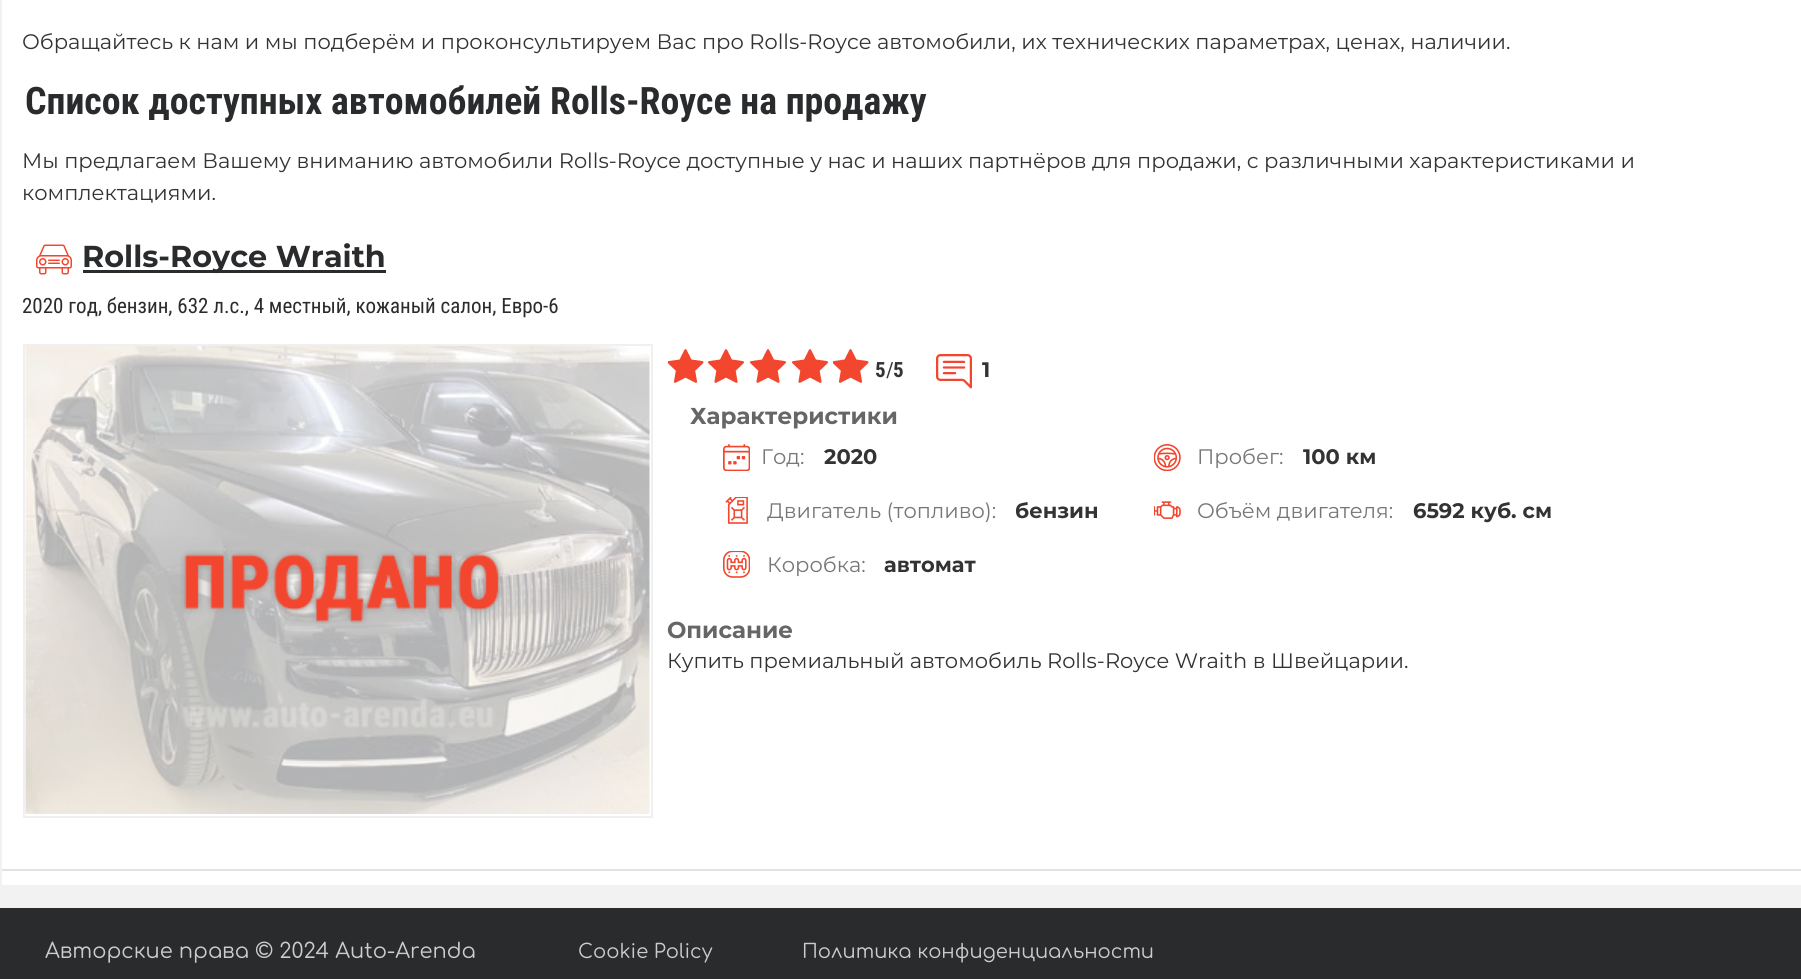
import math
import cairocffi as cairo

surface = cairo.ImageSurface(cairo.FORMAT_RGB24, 1801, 979)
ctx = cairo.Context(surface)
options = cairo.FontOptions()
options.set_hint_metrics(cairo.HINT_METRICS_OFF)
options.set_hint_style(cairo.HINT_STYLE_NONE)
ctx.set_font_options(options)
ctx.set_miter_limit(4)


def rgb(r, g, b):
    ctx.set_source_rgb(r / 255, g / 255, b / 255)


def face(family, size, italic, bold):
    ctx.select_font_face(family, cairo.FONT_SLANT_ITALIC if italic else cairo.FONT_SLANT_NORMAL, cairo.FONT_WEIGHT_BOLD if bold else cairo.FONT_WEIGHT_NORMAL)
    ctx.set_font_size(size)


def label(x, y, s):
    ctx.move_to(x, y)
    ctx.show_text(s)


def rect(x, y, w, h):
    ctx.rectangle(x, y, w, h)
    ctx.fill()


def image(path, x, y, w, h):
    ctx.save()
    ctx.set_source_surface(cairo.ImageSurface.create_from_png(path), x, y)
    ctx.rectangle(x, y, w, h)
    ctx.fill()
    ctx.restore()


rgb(242, 242, 242)
ctx.paint()
rgb(255, 255, 255)
rect(2, 0, 1799, 885)
face('Montserrat', 21, 0, 0)
rgb(51, 51, 51)
label(22, 49, 'Обращайтесь к нам и мы подберём и проконсультируем Вас про Rolls-Royce автомобили, их технических параметрах, ценах, наличии.')
face('Roboto Condensed', 37.8, 0, 1)
rgb(41, 43, 44)
label(25, 114, 'Список доступных автомобилей Rolls-Royce на продажу')
face('Montserrat', 21, 0, 0)
rgb(51, 51, 51)
label(22, 168, 'Мы предлагаем Вашему вниманию автомобили Rolls-Royce доступные у нас и наших партнёров для продажи, с различными характеристиками и')
label(22, 200, 'комплектациями.')
rgb(224, 227, 228)
rect(2, 869, 1799, 2)
image('image0.png', 36, 244, 36, 31)
rgb(41, 43, 44)
rect(83, 270, 303, 3)
face('Montserrat', 30.25, 0, 1)
label(82, 267, 'Rolls-Royce Wraith')
face('Roboto Condensed', 21, 0, 0)
label(22, 313, '2020 год, бензин, 632 л.с., 4 местный, кожаный салон, Евро-6')
ctx.rectangle(24, 345, 628, 472)
rgb(240, 240, 240)
ctx.stroke()
image('image1.png', 25, 346, 625, 468)
image('image2.png', 180, 550, 324, 74)
image('image3.png', 668, 349, 36, 34)
image('image4.png', 708, 349, 36, 34)
image('image4.png', 750, 349, 36, 34)
image('image4.png', 792, 349, 36, 34)
image('image3.png', 833, 349, 36, 34)
face('Roboto Condensed', 21, 0, 1)
rgb(51, 51, 51)
label(875, 377, '5')
face('Roboto Condensed', 21, 0, 0)
label(886, 377, '/')
face('Roboto Condensed', 21, 0, 1)
label(893, 377, '5')
image('image5.png', 936, 354, 36, 35)
face('Montserrat', 21, 0, 1)
label(982, 377, '1')
face('Montserrat', 23, 0, 1)
rgb(102, 102, 102)
label(690, 424, 'Характеристики')
image('image6.png', 723, 444, 27, 27)
face('Montserrat', 21, 0, 0)
rgb(119, 119, 119)
label(761, 464, 'Год:')
face('Montserrat', 21, 0, 1)
rgb(51, 51, 51)
label(824, 464, '2020')
image('image7.png', 1154, 444, 27, 27)
face('Montserrat', 21, 0, 0)
rgb(119, 119, 119)
label(1197, 464, 'Пробег:')
face('Montserrat', 21, 0, 1)
rgb(51, 51, 51)
label(1303, 464, '100 км')
image('image8.png', 725, 497, 23, 27)
face('Montserrat', 21, 0, 0)
rgb(119, 119, 119)
label(767, 518, 'Двигатель (топливо):')
face('Montserrat', 21, 0, 1)
rgb(51, 51, 51)
label(1015, 518, 'бензин')
image('image9.png', 1154, 501, 27, 18)
face('Montserrat', 21, 0, 0)
rgb(119, 119, 119)
label(1197, 518, 'Объём двигателя:')
face('Montserrat', 21, 0, 1)
rgb(51, 51, 51)
label(1413, 518, '6592 куб. см')
image('image10.png', 723, 551, 27, 27)
face('Montserrat', 21, 0, 0)
rgb(119, 119, 119)
label(767, 572, 'Коробка:')
face('Montserrat', 21, 0, 1)
rgb(51, 51, 51)
label(884, 572, 'автомат')
face('Montserrat', 23, 0, 1)
rgb(102, 102, 102)
label(667, 638, 'Описание')
face('Montserrat', 21, 0, 0)
rgb(51, 51, 51)
label(667, 668, 'Купить премиальный автомобиль Rolls-Royce Wraith в Швейцарии.')
rgb(41, 43, 44)
rect(0, 908, 1801, 71)
face('Comfortaa', 21, 0, 0)
rgb(204, 204, 204)
label(45, 958, 'Авторские права © 2024 Auto-Arenda')
face('Comfortaa', 19.5, 0, 0)
label(578, 958, 'Cookie Policy')
label(802, 958, 'Политика конфиденциальности')
surface.write_to_png('render.png')
